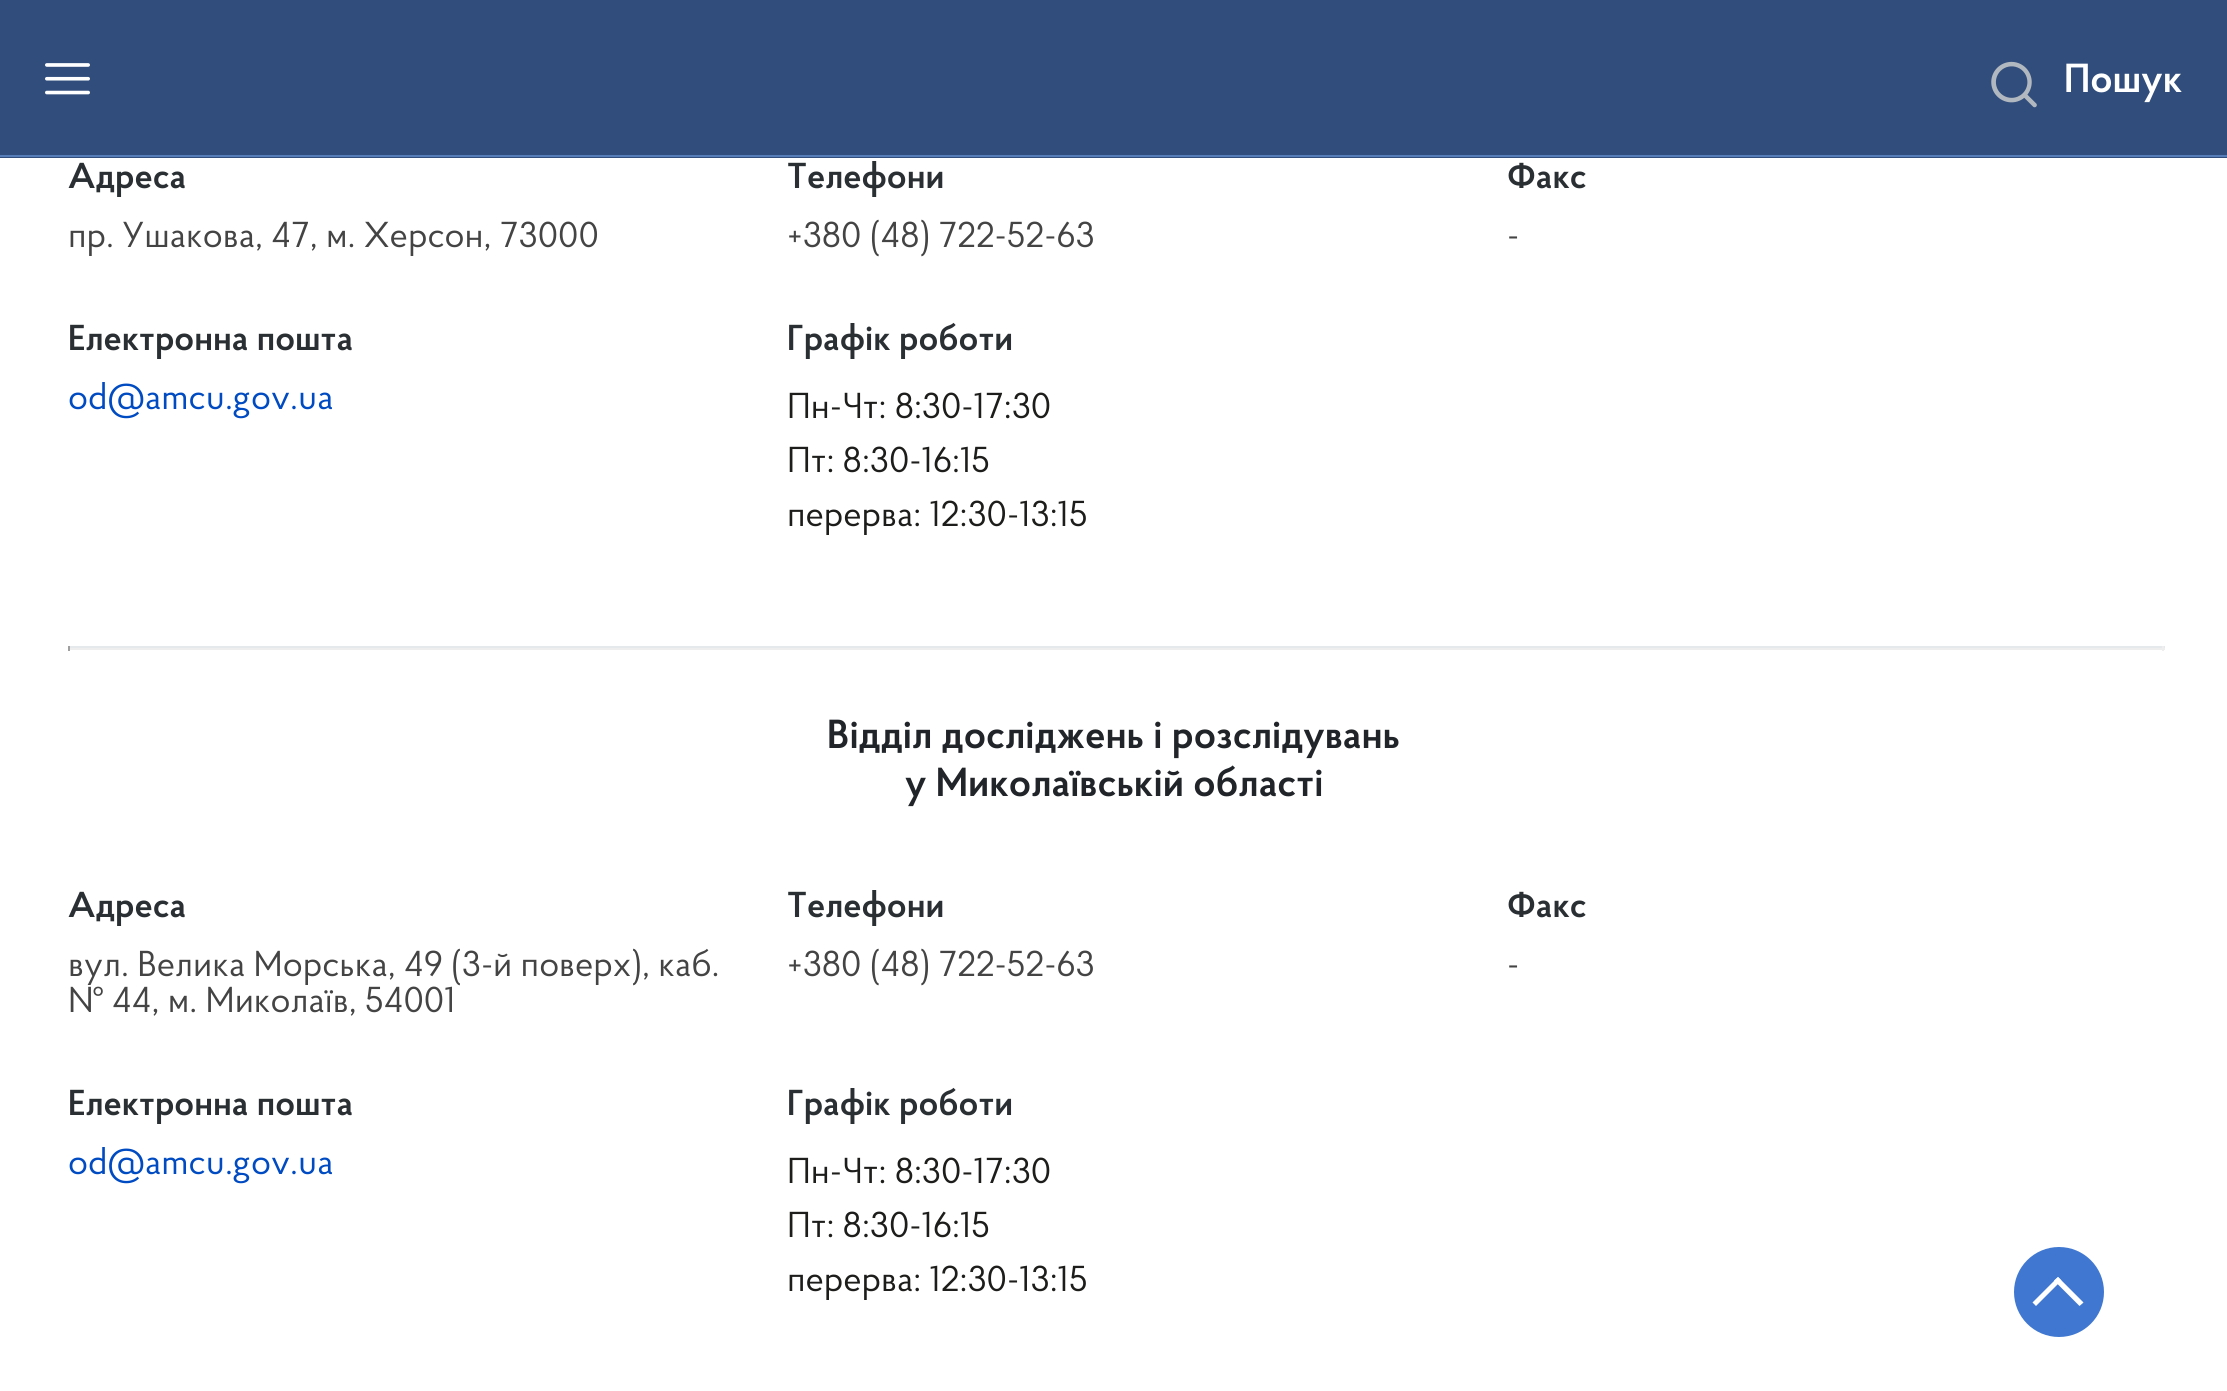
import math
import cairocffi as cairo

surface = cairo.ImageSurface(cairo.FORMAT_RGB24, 2227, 1391)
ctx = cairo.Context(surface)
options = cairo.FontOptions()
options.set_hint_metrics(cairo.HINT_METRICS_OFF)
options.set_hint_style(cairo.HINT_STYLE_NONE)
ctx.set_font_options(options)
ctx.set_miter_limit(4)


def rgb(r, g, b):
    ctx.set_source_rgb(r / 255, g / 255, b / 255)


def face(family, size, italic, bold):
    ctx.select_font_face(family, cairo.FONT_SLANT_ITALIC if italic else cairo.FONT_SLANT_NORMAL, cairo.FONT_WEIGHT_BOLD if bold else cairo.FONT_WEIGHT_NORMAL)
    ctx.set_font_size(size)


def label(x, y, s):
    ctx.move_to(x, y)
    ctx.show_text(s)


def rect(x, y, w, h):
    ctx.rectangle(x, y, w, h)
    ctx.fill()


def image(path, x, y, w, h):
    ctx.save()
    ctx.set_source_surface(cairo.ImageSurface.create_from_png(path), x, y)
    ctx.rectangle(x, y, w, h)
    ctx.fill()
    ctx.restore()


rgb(255, 255, 255)
ctx.paint()
rgb(48, 77, 124)
rect(0, 0, 2227, 158)
rgb(87, 125, 184)
rect(0, 155, 2227, 2)
image('image0.png', 45, 63, 45, 32)
image('image1.png', 1991, 61, 46, 47)
face('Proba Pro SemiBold', 40.5, 0, 0)
rgb(255, 255, 255)
label(2064, 92, 'Пошук')
face('Proba Pro SemiBold', 36, 0, 0)
rgb(42, 47, 51)
label(68, 188, 'Адреса')
face('Proba Pro', 36, 0, 0)
rgb(68, 68, 68)
label(68, 247, 'пр. Ушакова, 47, м. Херсон, 73000')
face('Proba Pro SemiBold', 36, 0, 0)
rgb(42, 47, 51)
label(787, 188, 'Телефони')
face('Proba Pro', 36, 0, 0)
rgb(68, 68, 68)
label(787, 247, '+380 (48) 722-52-63')
face('Proba Pro SemiBold', 36, 0, 0)
rgb(42, 47, 51)
label(1507, 188, 'Факс')
face('Proba Pro', 36, 0, 0)
rgb(68, 68, 68)
label(1507, 247, '-')
face('Proba Pro SemiBold', 36, 0, 0)
rgb(42, 47, 51)
label(68, 350, 'Електронна пошта')
face('Proba Pro', 36, 0, 0)
rgb(0, 75, 193)
label(68, 409, 'od@amcu.gov.ua')
face('Proba Pro SemiBold', 36, 0, 0)
rgb(42, 47, 51)
label(787, 350, 'Графік роботи')
face('Proba Pro', 36, 0, 0)
rgb(29, 29, 27)
label(787, 418, 'Пн-Чт: 8:30-17:30')
label(787, 472, 'Пт: 8:30-16:15')
label(787, 526, 'перерва: 12:30-13:15')
rgb(230, 233, 235)
rect(68, 646, 2097, 2)
rgb(238, 238, 238)
rect(2162, 646, 2, 5)
rect(68, 648, 2097, 2)
rgb(159, 159, 159)
rect(68, 646, 2, 5)
face('Proba Pro SemiBold', 40.5, 0, 0)
rgb(33, 37, 41)
label(827, 748, 'Відділ досліджень і розслідувань')
label(905, 796, 'у Миколаївській області')
face('Proba Pro SemiBold', 36, 0, 0)
rgb(42, 47, 51)
label(68, 917, 'Адреса')
face('Proba Pro', 36, 0, 0)
rgb(68, 68, 68)
label(68, 976, 'вул. Велика Морська, 49 (3-й поверх), каб.')
label(68, 1012, '№ 44, м. Миколаїв, 54001')
face('Proba Pro SemiBold', 36, 0, 0)
rgb(42, 47, 51)
label(787, 917, 'Телефони')
face('Proba Pro', 36, 0, 0)
rgb(68, 68, 68)
label(787, 976, '+380 (48) 722-52-63')
face('Proba Pro SemiBold', 36, 0, 0)
rgb(42, 47, 51)
label(1507, 917, 'Факс')
face('Proba Pro', 36, 0, 0)
rgb(68, 68, 68)
label(1507, 976, '-')
face('Proba Pro SemiBold', 36, 0, 0)
rgb(42, 47, 51)
label(68, 1115, 'Електронна пошта')
face('Proba Pro', 36, 0, 0)
rgb(0, 75, 193)
label(68, 1174, 'od@amcu.gov.ua')
face('Proba Pro SemiBold', 36, 0, 0)
rgb(42, 47, 51)
label(787, 1115, 'Графік роботи')
face('Proba Pro', 36, 0, 0)
rgb(29, 29, 27)
label(787, 1183, 'Пн-Чт: 8:30-17:30')
label(787, 1237, 'Пт: 8:30-16:15')
label(787, 1291, 'перерва: 12:30-13:15')
rgb(64, 120, 209)
ctx.new_path()
ctx.arc(2059, 1292, 45, 0, 2 * math.pi)
ctx.fill()
rgb(255, 255, 255)
ctx.new_path()
ctx.move_to(2054, 1280.5)
ctx.line_to(2058, 1277)
ctx.line_to(2083.5, 1302.5)
ctx.line_to(2079.5, 1306)
ctx.close_path()
ctx.fill()
ctx.new_path()
ctx.move_to(2058, 1277)
ctx.line_to(2061.5, 1280.5)
ctx.line_to(2036, 1306)
ctx.line_to(2032.5, 1302.5)
ctx.close_path()
ctx.fill()
surface.write_to_png('render.png')
